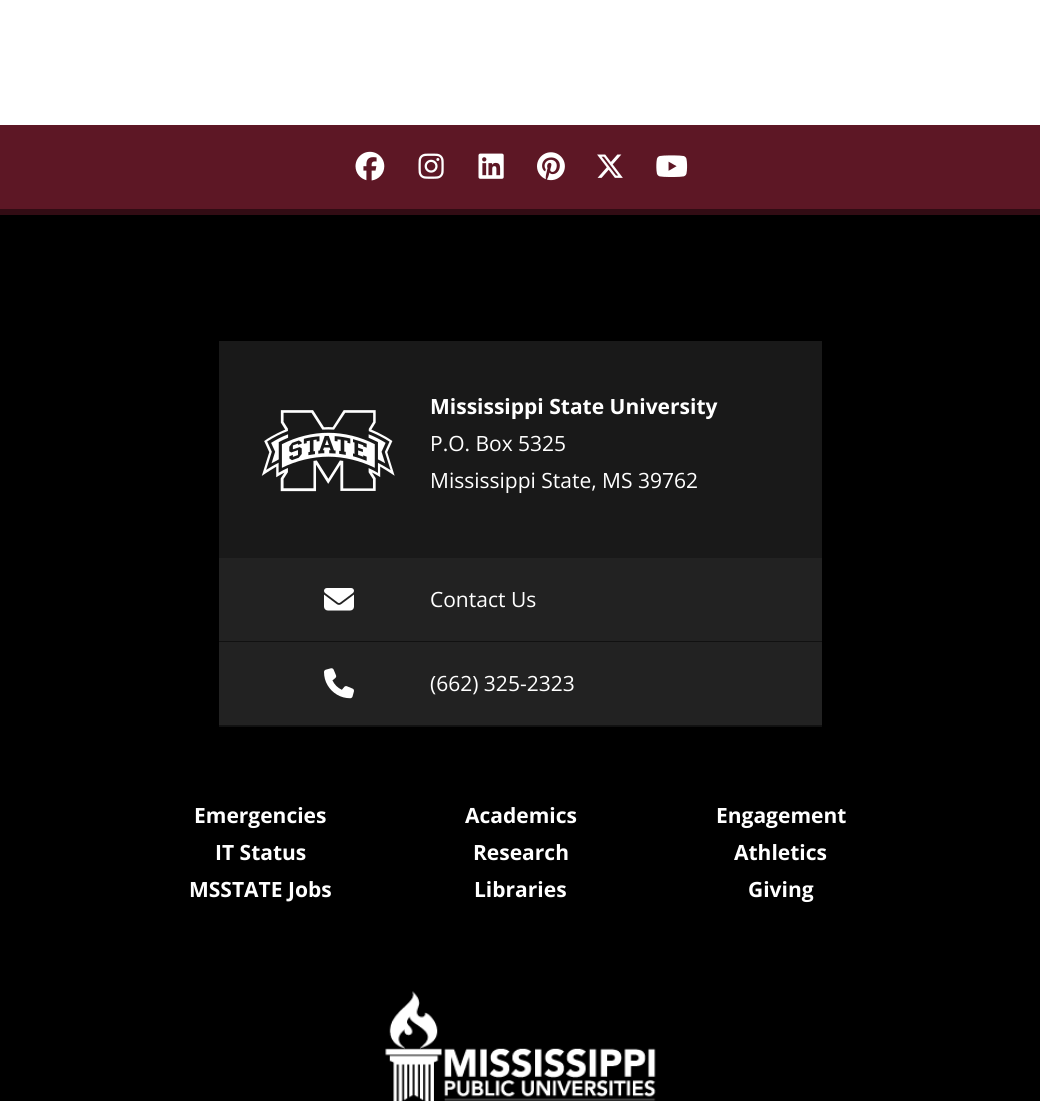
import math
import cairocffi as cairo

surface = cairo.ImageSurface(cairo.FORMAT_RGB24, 1040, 1101)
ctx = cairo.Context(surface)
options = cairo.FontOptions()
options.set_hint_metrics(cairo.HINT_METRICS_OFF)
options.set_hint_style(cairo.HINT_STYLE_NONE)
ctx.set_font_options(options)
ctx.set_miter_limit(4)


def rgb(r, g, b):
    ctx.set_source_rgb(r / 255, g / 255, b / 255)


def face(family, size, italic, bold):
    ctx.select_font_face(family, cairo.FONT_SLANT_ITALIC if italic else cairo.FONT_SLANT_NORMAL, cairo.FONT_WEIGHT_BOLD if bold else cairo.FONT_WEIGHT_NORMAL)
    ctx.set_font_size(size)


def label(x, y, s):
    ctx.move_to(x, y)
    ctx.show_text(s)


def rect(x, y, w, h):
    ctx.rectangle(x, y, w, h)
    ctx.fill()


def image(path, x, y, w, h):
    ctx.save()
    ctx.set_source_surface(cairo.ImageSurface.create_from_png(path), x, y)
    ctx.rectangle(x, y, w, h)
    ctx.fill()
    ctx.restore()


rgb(255, 255, 255)
ctx.paint()
rgb(93, 23, 37)
rect(0, 125, 1040, 84)
rgb(50, 12, 20)
rect(0, 209, 1040, 6)
image('image0.png', 355, 151, 30, 30)
image('image1.png', 418, 153, 26, 26)
image('image2.png', 478, 153, 26, 26)
image('image3.png', 537, 152, 28, 29)
image('image4.png', 597, 154, 26, 24)
image('image5.png', 656, 155, 32, 22)
rgb(0, 0, 0)
rect(0, 215, 1040, 886)
rgb(25, 25, 25)
rect(219, 341, 603, 217)
image('image6.png', 261, 410, 134, 82)
face('Open Sans', 21, 0, 1)
rgb(255, 255, 255)
label(430, 414, 'Mississippi State University')
face('Open Sans', 21, 0, 0)
label(430, 451, 'P.O. Box 5325')
label(430, 488, 'Mississippi State, MS 39762')
rgb(34, 34, 34)
rect(219, 558, 603, 83)
rgb(17, 17, 17)
rect(219, 641, 603, 1)
image('image7.png', 324, 588, 30, 23)
rgb(255, 255, 255)
label(430, 607, 'Contact Us')
rgb(34, 34, 34)
rect(219, 642, 603, 83)
rgb(17, 17, 17)
rect(219, 725, 603, 2)
image('image8.png', 324, 668, 30, 31)
rgb(255, 255, 255)
label(430, 691, '(662) 325-2323')
face('Open Sans', 21, 0, 1)
label(194, 823, 'Emergencies')
label(215, 860, 'IT Status')
label(189, 897, 'MSSTATE Jobs')
label(465, 823, 'Academics')
label(473, 860, 'Research')
label(474, 897, 'Libraries')
label(716, 823, 'Engagement')
label(734, 860, 'Athletics')
label(748, 897, 'Giving')
image('image9.png', 385, 991, 271, 110)
surface.write_to_png('render.png')
